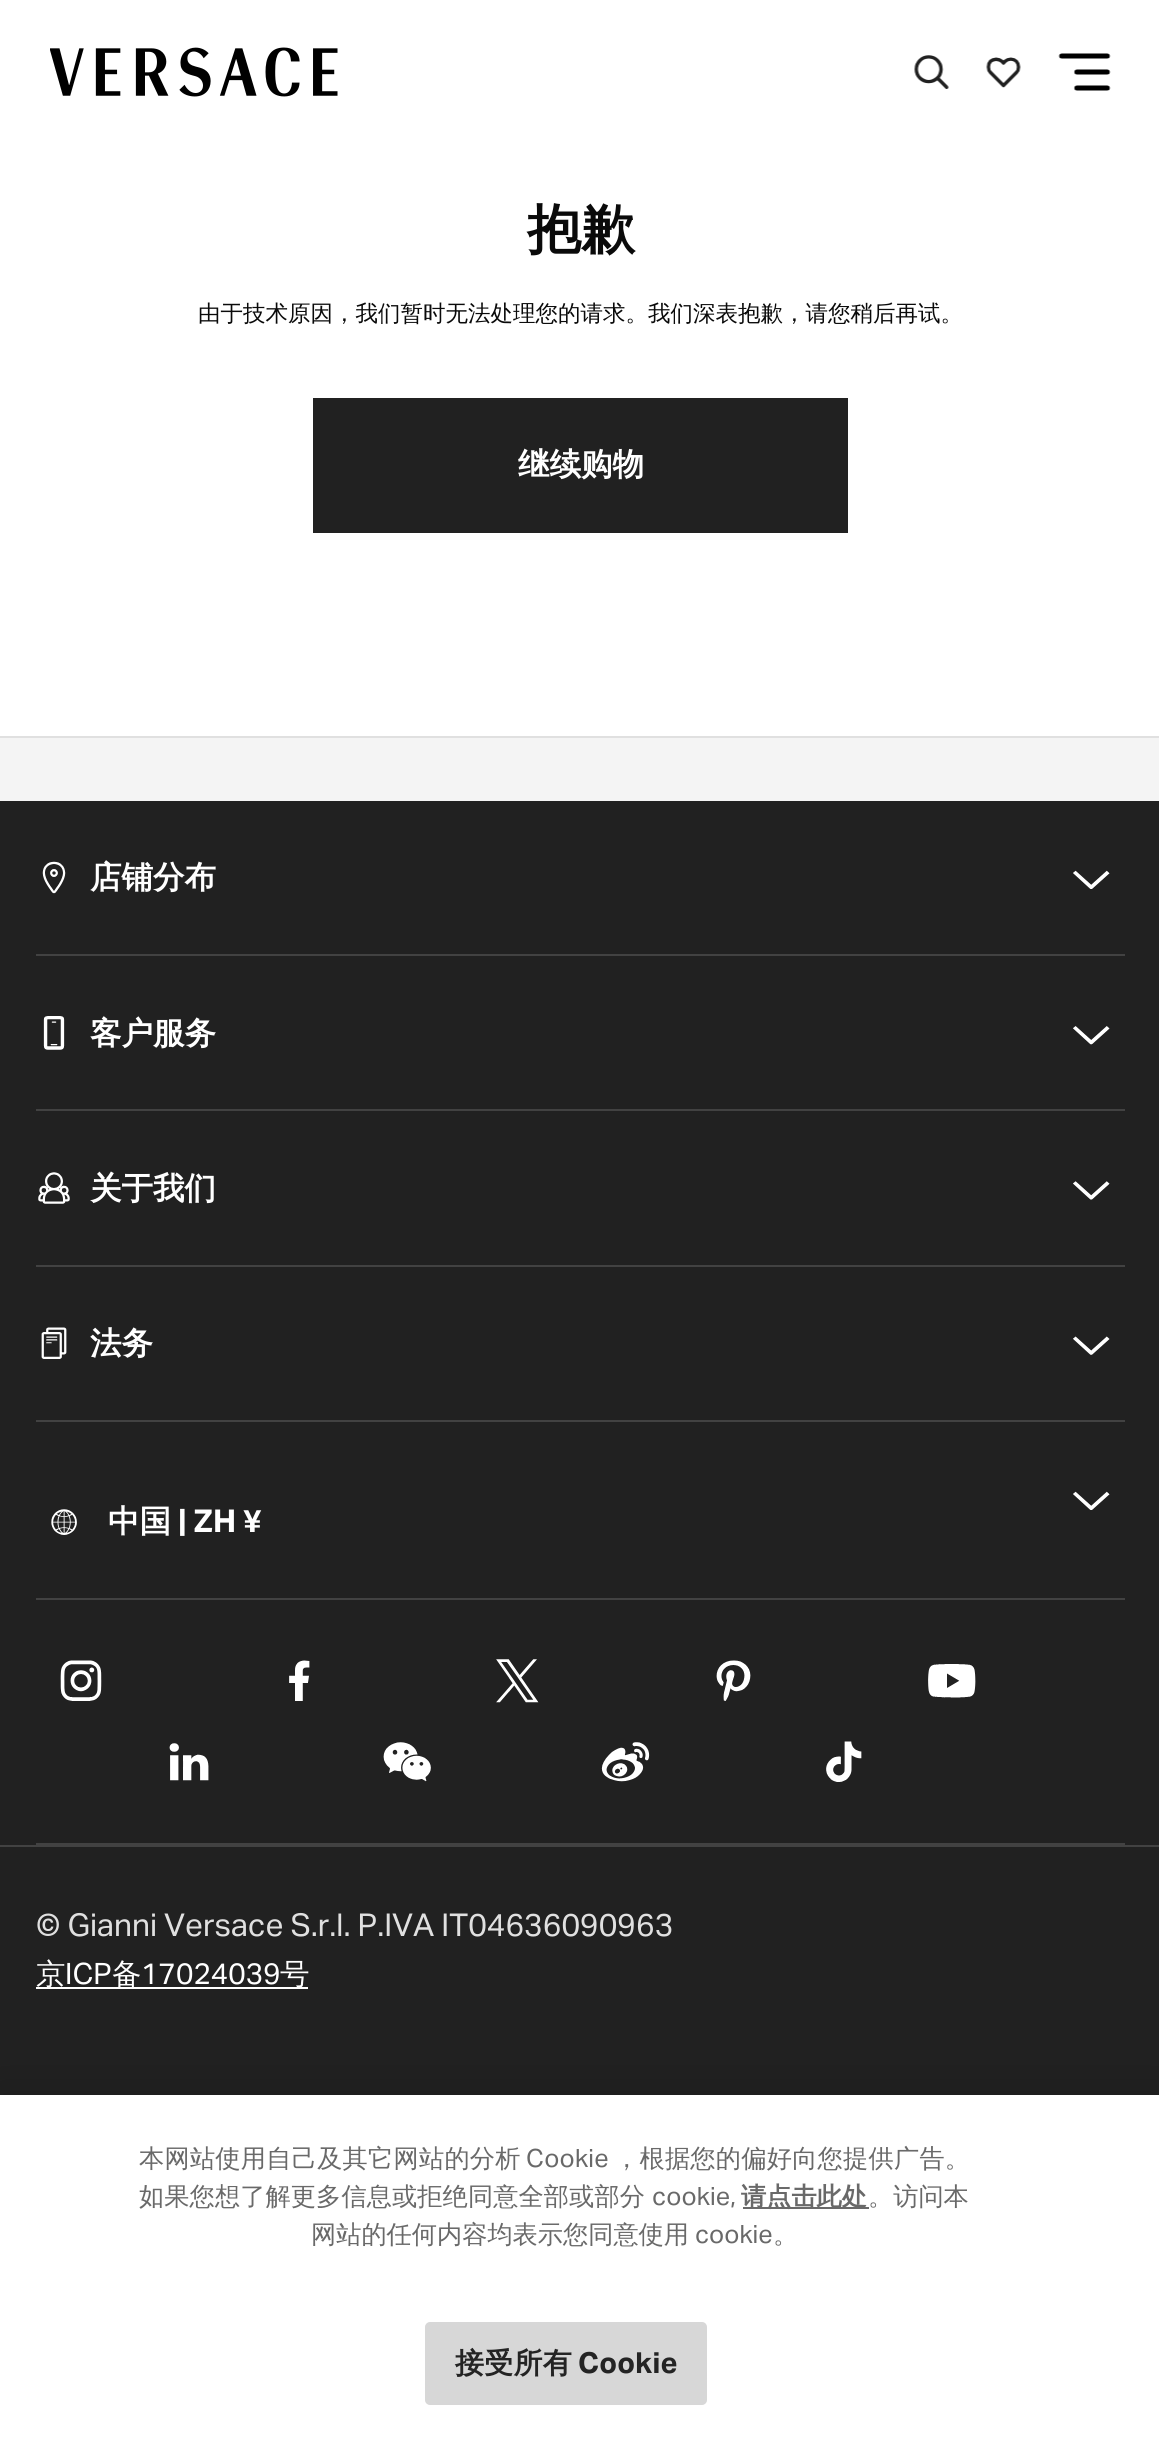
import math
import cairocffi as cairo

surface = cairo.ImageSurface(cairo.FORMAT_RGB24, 1159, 2461)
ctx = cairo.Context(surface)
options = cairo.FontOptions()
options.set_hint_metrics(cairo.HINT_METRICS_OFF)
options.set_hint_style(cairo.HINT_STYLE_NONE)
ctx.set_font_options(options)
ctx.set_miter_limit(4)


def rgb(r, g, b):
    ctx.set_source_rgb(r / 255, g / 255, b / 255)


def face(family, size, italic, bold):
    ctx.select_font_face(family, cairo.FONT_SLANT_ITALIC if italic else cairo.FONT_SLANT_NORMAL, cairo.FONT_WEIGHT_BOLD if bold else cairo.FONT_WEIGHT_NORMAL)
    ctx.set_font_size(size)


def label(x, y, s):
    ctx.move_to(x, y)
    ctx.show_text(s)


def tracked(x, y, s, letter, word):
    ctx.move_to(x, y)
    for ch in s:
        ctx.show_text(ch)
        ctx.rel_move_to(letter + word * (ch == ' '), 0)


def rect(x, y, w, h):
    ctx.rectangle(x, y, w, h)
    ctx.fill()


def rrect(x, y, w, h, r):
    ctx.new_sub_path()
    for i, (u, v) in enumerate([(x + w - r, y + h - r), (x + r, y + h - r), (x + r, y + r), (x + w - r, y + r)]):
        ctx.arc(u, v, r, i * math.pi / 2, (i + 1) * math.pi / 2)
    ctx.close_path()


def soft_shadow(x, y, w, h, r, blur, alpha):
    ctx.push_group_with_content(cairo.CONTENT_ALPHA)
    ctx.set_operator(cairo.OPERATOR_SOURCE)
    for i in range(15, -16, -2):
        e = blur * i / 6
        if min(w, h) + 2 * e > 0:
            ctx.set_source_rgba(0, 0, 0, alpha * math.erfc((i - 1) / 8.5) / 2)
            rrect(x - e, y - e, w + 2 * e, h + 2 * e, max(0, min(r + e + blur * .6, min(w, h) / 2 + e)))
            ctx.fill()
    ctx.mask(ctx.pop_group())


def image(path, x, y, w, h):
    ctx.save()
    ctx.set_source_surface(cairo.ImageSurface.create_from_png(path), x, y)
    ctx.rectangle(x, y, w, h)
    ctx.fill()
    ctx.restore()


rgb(255, 255, 255)
ctx.paint()
image('image0.png', 50, 47, 288, 50)
image('image1.png', 914, 55, 35, 34)
image('image2.png', 986, 57, 35, 31)
image('image3.png', 1058, 53, 53, 38)
face('WenQuanYi Zen Hei', 54, 0, 1)
rgb(10, 10, 10)
label(527, 248, '抱歉')
face('WenQuanYi Zen Hei Medium', 22.5, 0, 0)
label(198, 321, '由于技术原因，我们暂时无法处理您的请求。我们深表抱歉，请您稍后再试。')
rgb(33, 33, 33)
rect(313, 398, 535, 135)
face('WenQuanYi Zen Hei', 31.5, 0, 1)
rgb(255, 255, 255)
label(518, 475, '继续购物')
rgb(244, 244, 244)
rect(0, 738, 1159, 63)
rgb(224, 224, 224)
rect(0, 736, 1159, 2)
rgb(33, 33, 33)
rect(0, 801, 1159, 1044)
rgb(66, 66, 66)
rect(36, 954, 1089, 2)
image('image4.png', 42, 861, 24, 33)
rgb(255, 255, 255)
label(90, 888, '店铺分布')
image('image5.png', 1073, 870, 37, 19)
rgb(66, 66, 66)
rect(36, 1109, 1089, 2)
image('image6.png', 43, 1016, 22, 34)
rgb(255, 255, 255)
label(90, 1044, '客户服务')
image('image7.png', 1073, 1026, 37, 19)
rgb(66, 66, 66)
rect(36, 1265, 1089, 2)
image('image8.png', 38, 1172, 32, 32)
rgb(255, 255, 255)
label(90, 1199, '关于我们')
image('image9.png', 1073, 1181, 37, 19)
rgb(66, 66, 66)
rect(36, 1420, 1089, 2)
image('image10.png', 41, 1327, 26, 32)
rgb(255, 255, 255)
label(90, 1354, '法务')
image('image11.png', 1073, 1336, 37, 19)
rgb(66, 66, 66)
rect(36, 1598, 1089, 2)
image('image5.png', 1073, 1491, 37, 19)
image('image12.png', 51, 1509, 26, 26)
rgb(255, 255, 255)
label(108, 1532, '中国')
face('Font', 31.5, 0, 1)
label(178, 1532, '| ZH ¥')
rgb(66, 66, 66)
rect(36, 1843, 1089, 2)
image('image13.png', 60, 1660, 42, 41)
image('image14.png', 289, 1660, 21, 41)
image('image15.png', 496, 1659, 43, 44)
image('image16.png', 716, 1660, 35, 41)
image('image17.png', 928, 1664, 48, 34)
image('image18.png', 169, 1743, 40, 38)
image('image19.png', 383, 1742, 48, 40)
image('image20.png', 601, 1742, 49, 40)
image('image21.png', 826, 1741, 36, 41)
rgb(33, 33, 33)
rect(0, 1847, 1159, 248)
rgb(66, 66, 66)
rect(0, 1845, 1159, 2)
face('Font', 31.5, 0, 0)
rgb(224, 224, 224)
label(36, 1936, '© Gianni Versace S.r.l. P.IVA IT04636090963')
rgb(255, 255, 255)
rect(36, 1987, 272, 2)
face('WenQuanYi Zen Hei Medium', 29.5, 0, 0)
label(36, 1984, '京')
face('Font', 29.5, 0, 0)
label(65, 1984, 'ICP')
face('WenQuanYi Zen Hei Medium', 29.5, 0, 0)
label(112, 1984, '备')
face('Font', 29.5, 0, 0)
label(141, 1984, '17024039')
face('WenQuanYi Zen Hei Medium', 29.5, 0, 0)
label(280, 1984, '号')
rgb(0, 0, 0)
soft_shadow(0, 2095, 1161, 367, 0, 20, 0.2)
rgb(255, 255, 255)
rect(0, 2095, 1159, 366)
face('WenQuanYi Zen Hei Medium', 25.2, 0, 0)
rgb(105, 105, 105)
tracked(139, 2167, '本网站使用自己及其它网站的分析', 0.25, 0)
face('Font', 25.2, 0, 0)
tracked(526, 2167, 'Cookie', 0.25, 0)
face('WenQuanYi Zen Hei Medium', 25.2, 0, 0)
tracked(614, 2167, '，根据您的偏好向您提供广告。', 0.25, 0)
tracked(139, 2205, '如果您想了解更多信息或拒绝同意全部或部分', 0.1, 0)
face('Font', 25.2, 0, 0)
tracked(652, 2205, 'cookie,', 0.1, 0)
rect(743, 2207, 126, 2)
face('WenQuanYi Zen Hei', 25.2, 0, 1)
label(741, 2205, '请点击此处')
face('WenQuanYi Zen Hei Medium', 25.2, 0, 0)
label(868, 2205, '。访问本')
label(311, 2243, '网站的任何内容均表示您同意使用')
face('Font', 25.2, 0, 0)
label(695, 2243, 'cookie')
face('WenQuanYi Zen Hei Medium', 25.2, 0, 0)
label(773, 2243, '。')
rgb(215, 215, 215)
rrect(426, 2323, 280, 81, 4)
ctx.fill_preserve()
ctx.stroke()
face('WenQuanYi Zen Hei', 29, 0, 1)
rgb(36, 36, 36)
tracked(455, 2373, '接受所有', 0.25, 0)
face('Font', 29, 0, 1)
tracked(578, 2373, 'Cookie', 0.25, 0)
surface.write_to_png('render.png')
